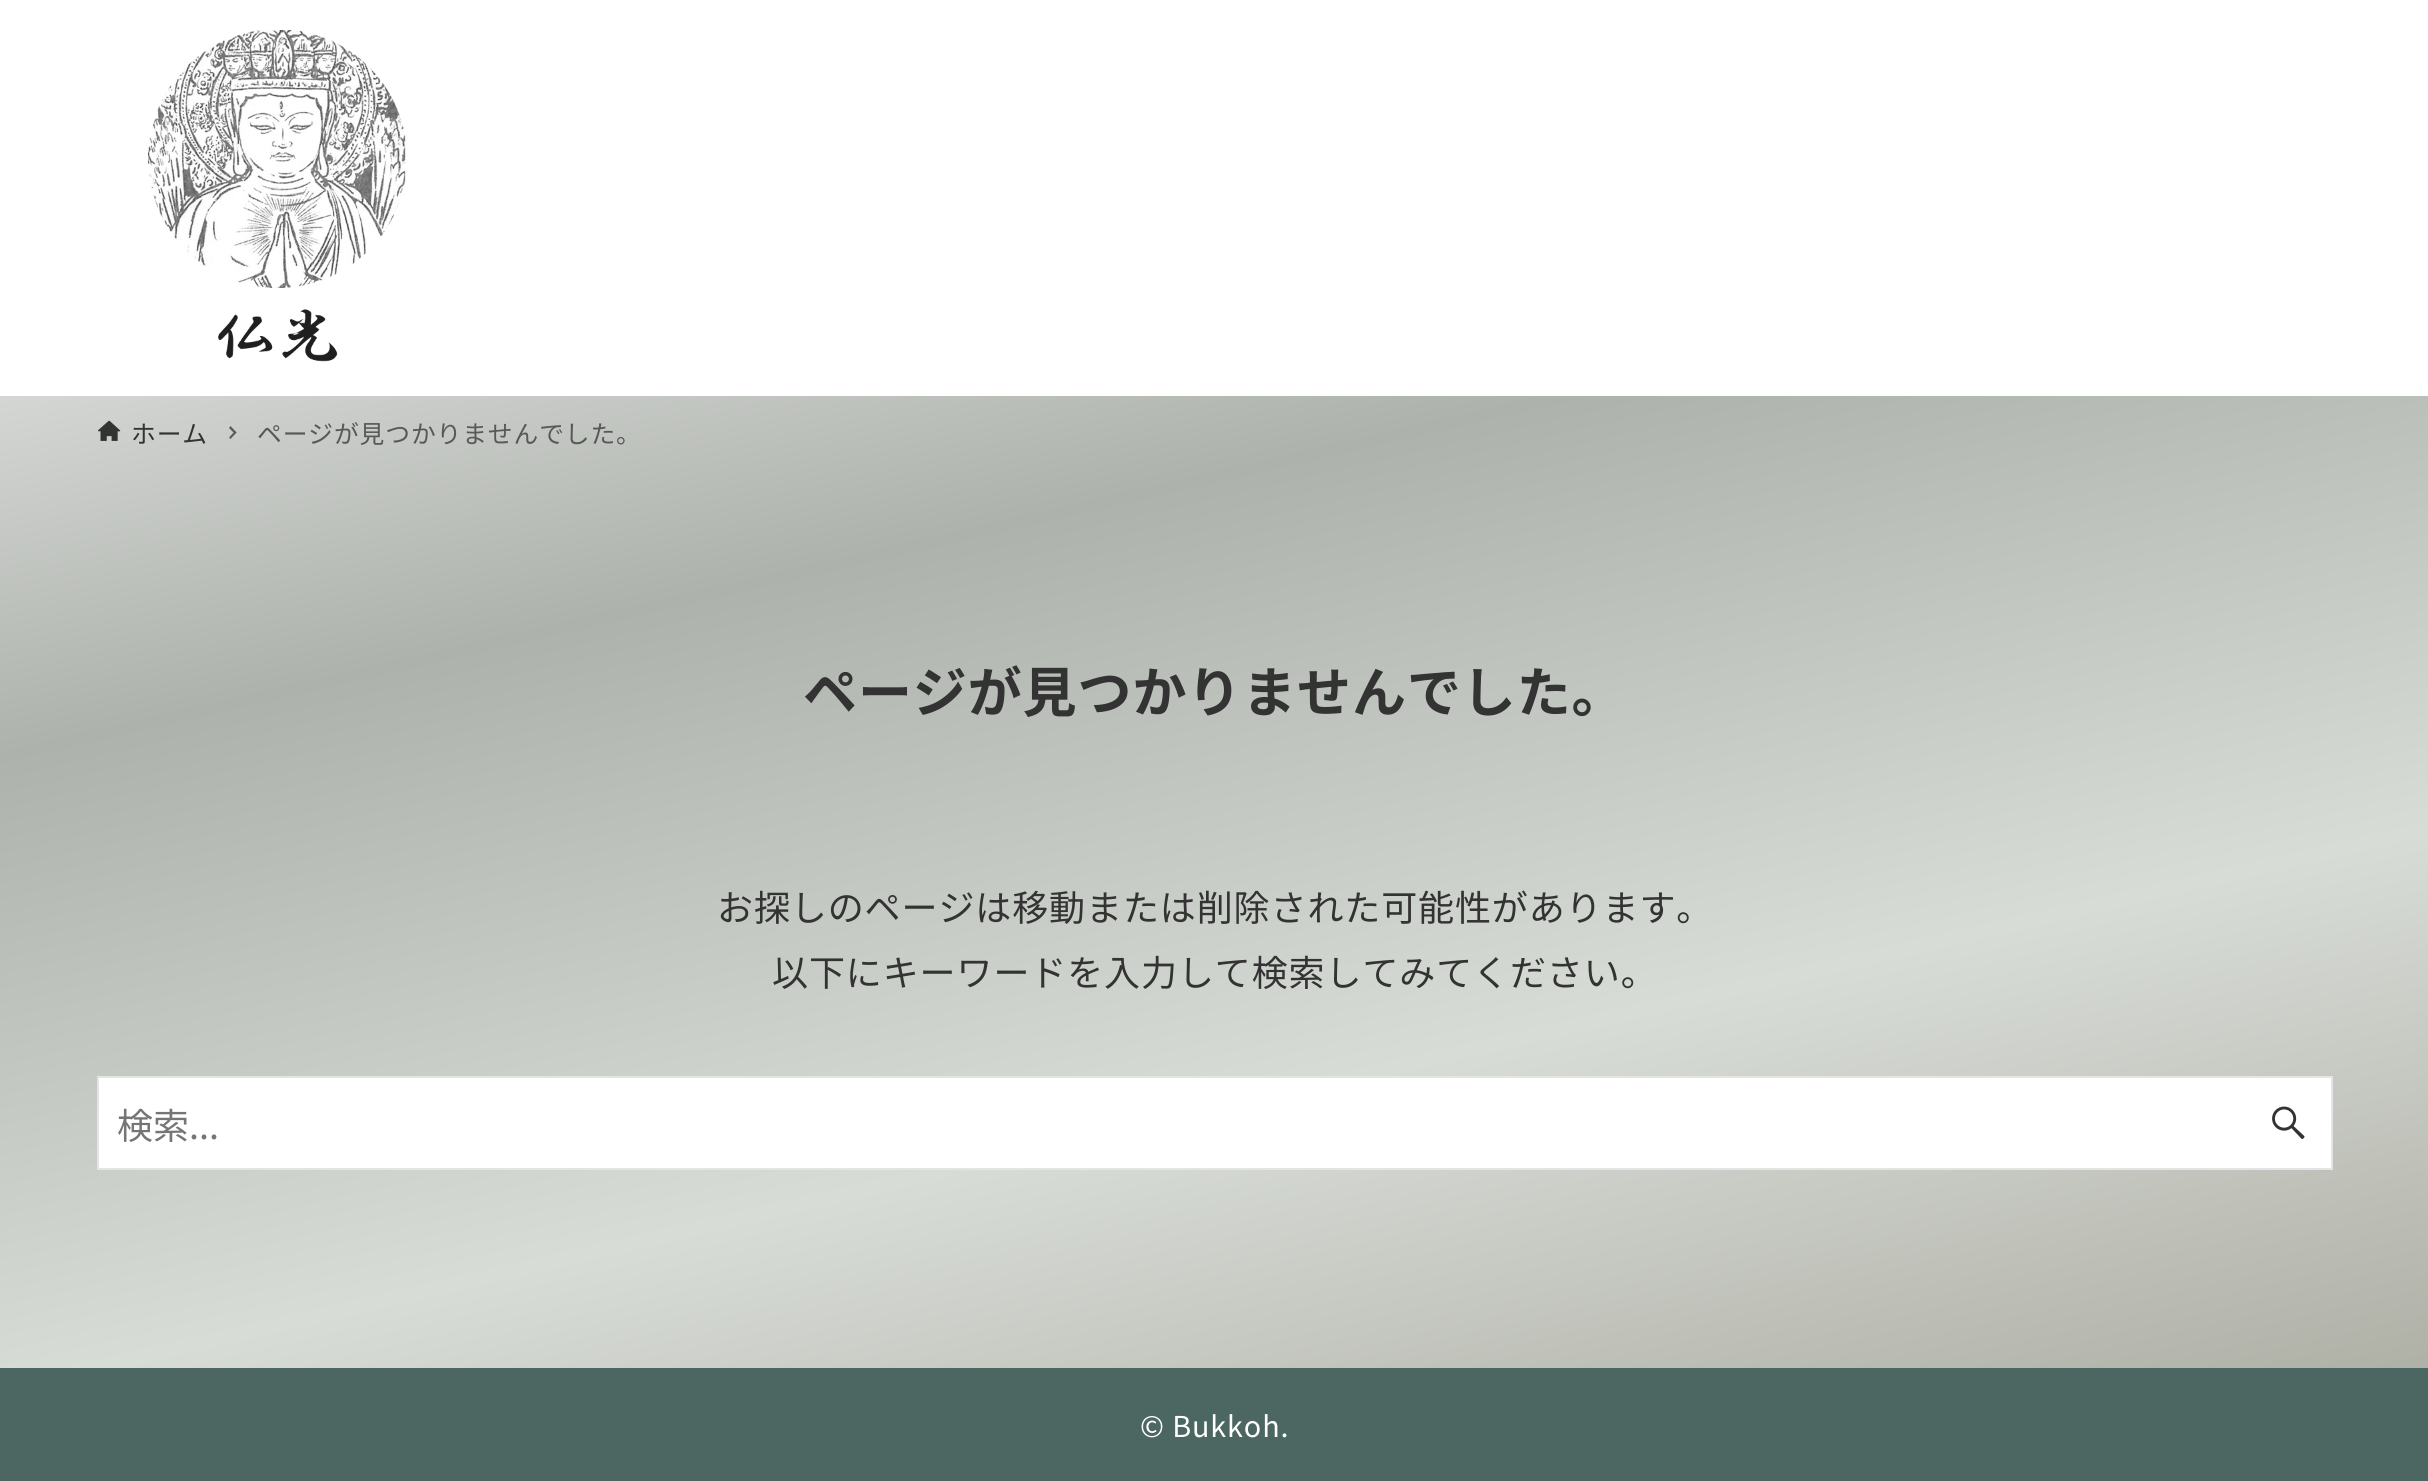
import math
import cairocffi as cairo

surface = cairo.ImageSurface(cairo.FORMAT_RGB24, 2428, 1481)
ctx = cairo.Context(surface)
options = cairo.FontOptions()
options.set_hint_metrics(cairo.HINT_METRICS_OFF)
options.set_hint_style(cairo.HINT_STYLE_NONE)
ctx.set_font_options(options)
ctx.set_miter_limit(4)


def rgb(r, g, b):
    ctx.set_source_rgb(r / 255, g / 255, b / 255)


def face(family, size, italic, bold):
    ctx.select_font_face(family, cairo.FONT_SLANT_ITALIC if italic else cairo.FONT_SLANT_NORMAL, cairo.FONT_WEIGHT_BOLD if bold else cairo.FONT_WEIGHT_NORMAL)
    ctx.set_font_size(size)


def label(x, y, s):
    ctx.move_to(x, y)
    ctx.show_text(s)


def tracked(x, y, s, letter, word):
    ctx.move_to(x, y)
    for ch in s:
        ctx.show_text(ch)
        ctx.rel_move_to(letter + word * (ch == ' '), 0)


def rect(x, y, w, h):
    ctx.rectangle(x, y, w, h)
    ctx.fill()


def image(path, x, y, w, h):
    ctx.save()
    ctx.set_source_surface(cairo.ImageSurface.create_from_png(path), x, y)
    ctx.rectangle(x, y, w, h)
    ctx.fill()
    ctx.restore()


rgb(255, 255, 255)
ctx.paint()
gradient = cairo.LinearGradient(991, -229, 1439, 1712)
gradient.add_color_stop_rgba(0.05, 0.949, 0.957, 0.953, 1)
gradient.add_color_stop_rgba(0.37, 0.682, 0.698, 0.675, 1)
gradient.add_color_stop_rgba(0.68, 0.847, 0.863, 0.843, 1)
gradient.add_color_stop_rgba(0.94, 0.69, 0.694, 0.655, 1)
ctx.set_source(gradient)
rect(0, 396, 2428, 972)
image('image0.png', 148, 30, 258, 332)
image('image1.png', 98, 420, 23, 21)
face('Noto Sans JP', 24.75, 0, 0)
rgb(51, 51, 51)
tracked(131, 443, 'ホーム', 0.9, 0)
rgb(89, 90, 89)
ctx.new_path()
ctx.move_to(230.5, 426)
ctx.line_to(236.5, 432.5)
ctx.line_to(235, 434)
ctx.line_to(229, 428)
ctx.close_path()
ctx.fill()
ctx.new_path()
ctx.move_to(235, 431)
ctx.line_to(236.5, 432.5)
ctx.line_to(230.5, 439)
ctx.line_to(229, 437.5)
ctx.close_path()
ctx.fill()
rgb(87, 88, 87)
tracked(257, 443, 'ページが見つかりませんでした。', 0.9, 0)
face('Noto Sans JP', 54, 0, 1)
rgb(51, 51, 51)
tracked(803, 712, 'ページが見つかりませんでした。', 0.9, 0)
face('Noto Sans JP', 36, 0, 0)
tracked(717, 921, 'お探しのページは移動または削除された可能性があります。', 0.9, 0)
tracked(772, 986, '以下にキーワードを入力して検索してみてください。', 0.9, 0)
rgb(255, 255, 255)
ctx.rectangle(98, 1077, 2234, 92)
ctx.fill_preserve()
rgb(228, 228, 228)
ctx.stroke()
rgb(117, 117, 117)
label(117, 1139, '検索...')
image('image2.png', 2272, 1106, 33, 33)
rgb(76, 103, 98)
rect(0, 1368, 2428, 113)
face('Noto Sans JP', 28.75, 0, 0)
rgb(255, 255, 255)
tracked(1140, 1437, '© Bukkoh.', 0.9, 0)
surface.write_to_png('render.png')
